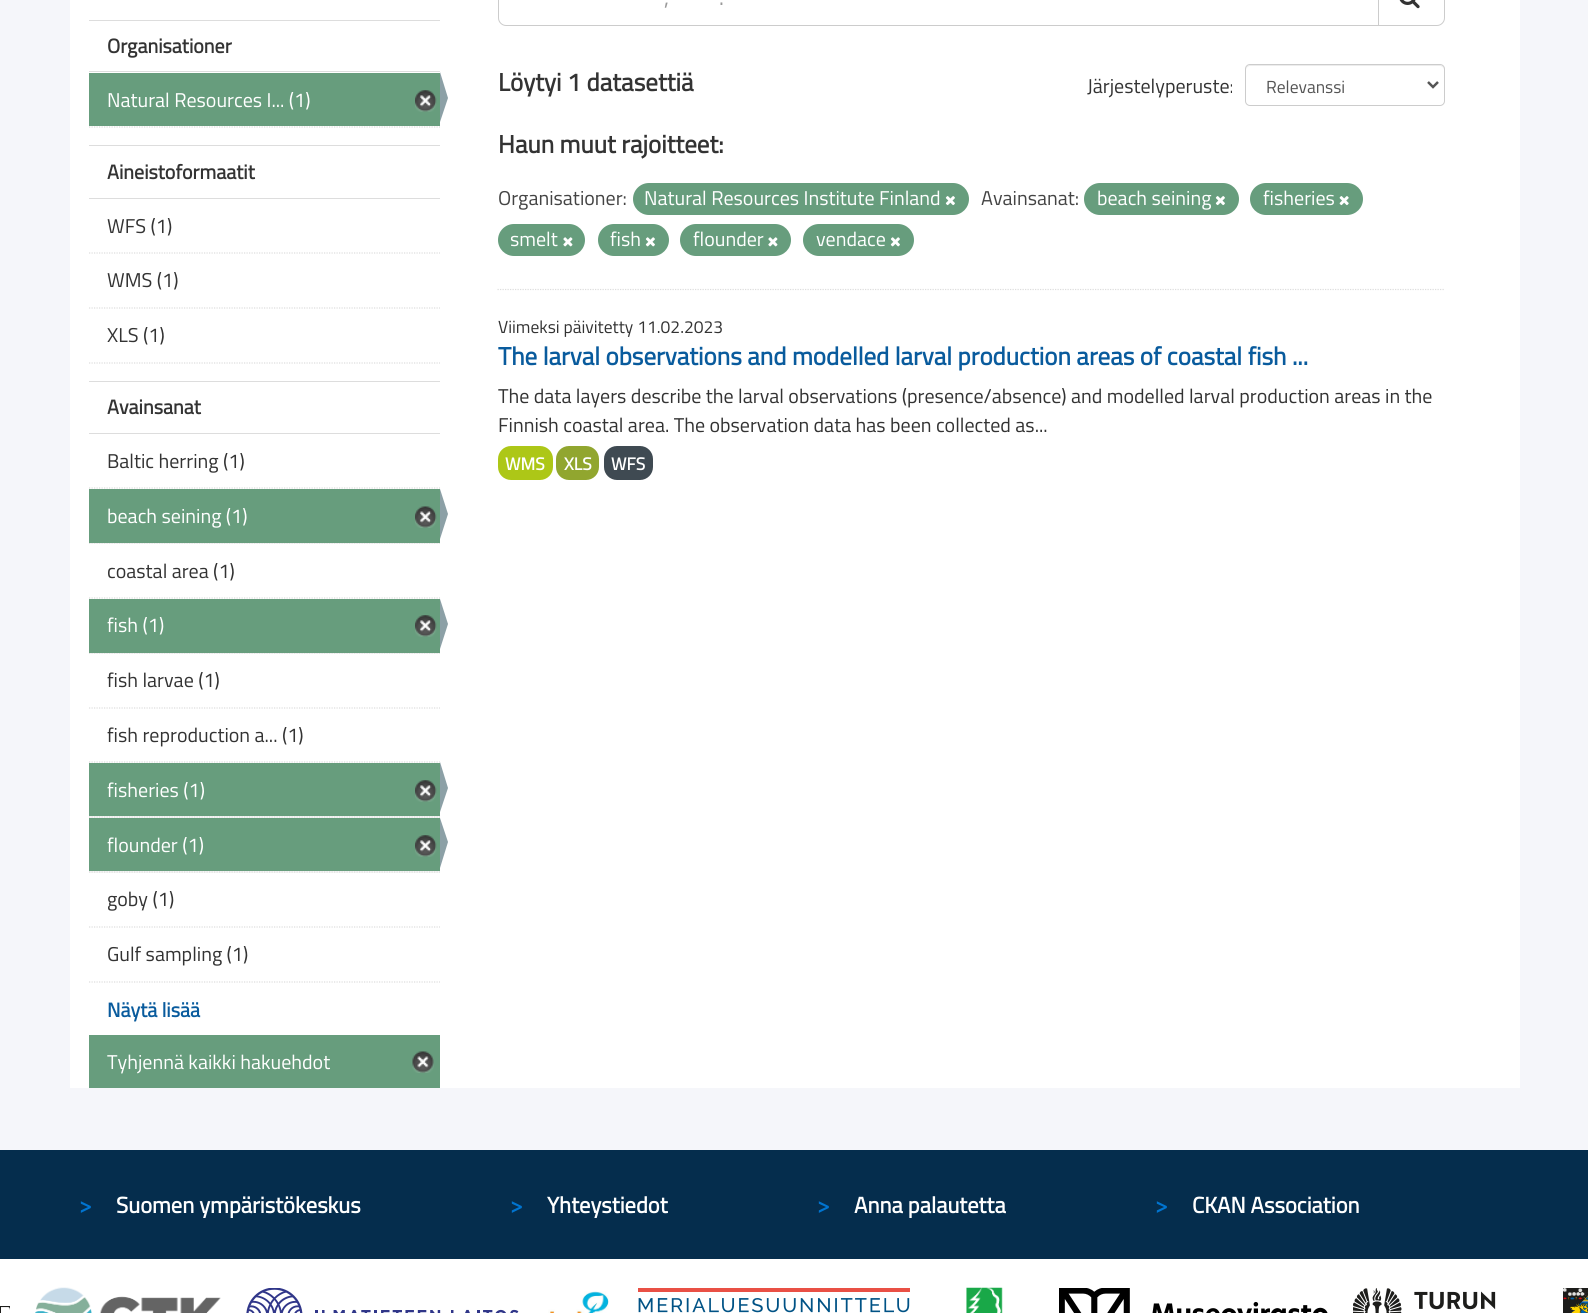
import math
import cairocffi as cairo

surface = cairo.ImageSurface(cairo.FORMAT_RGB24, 1588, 1313)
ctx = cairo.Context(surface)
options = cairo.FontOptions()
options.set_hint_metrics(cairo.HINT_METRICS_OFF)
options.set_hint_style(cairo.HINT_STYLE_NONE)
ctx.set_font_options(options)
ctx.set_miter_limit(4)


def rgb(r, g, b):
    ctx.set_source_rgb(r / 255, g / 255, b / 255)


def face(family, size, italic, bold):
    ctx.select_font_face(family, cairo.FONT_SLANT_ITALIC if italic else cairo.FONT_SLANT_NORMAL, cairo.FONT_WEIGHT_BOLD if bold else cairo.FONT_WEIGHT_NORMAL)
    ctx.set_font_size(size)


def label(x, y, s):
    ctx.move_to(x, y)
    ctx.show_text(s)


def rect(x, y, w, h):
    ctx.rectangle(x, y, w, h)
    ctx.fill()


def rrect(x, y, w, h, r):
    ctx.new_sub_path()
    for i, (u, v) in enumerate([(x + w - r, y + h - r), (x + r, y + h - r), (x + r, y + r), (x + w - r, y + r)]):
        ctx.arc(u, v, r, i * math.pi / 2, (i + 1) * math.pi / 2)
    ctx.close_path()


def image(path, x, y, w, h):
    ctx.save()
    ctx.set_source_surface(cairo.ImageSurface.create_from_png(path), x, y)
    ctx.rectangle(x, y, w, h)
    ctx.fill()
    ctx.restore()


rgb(255, 255, 255)
ctx.paint()
rgb(245, 246, 250)
rect(0, 0, 1588, 1150)
rgb(255, 255, 255)
rect(70, 0, 1450, 1088)
rgb(221, 221, 221)
rect(89, 20, 351, 1)
rect(89, 71, 351, 1)
face('Titillium Web', 20, 0, 1)
rgb(51, 51, 51)
label(107, 53, 'Organisationer')
rgb(103, 157, 125)
rect(89, 73, 351, 53)
face('Titillium Web', 20, 0, 0)
rgb(255, 255, 255)
label(107, 107, 'Natural Resources I... (1)')
image('image0.png', 415, 90, 22, 22)
rgb(140, 160, 166)
ctx.new_path()
ctx.move_to(440, 122)
ctx.line_to(440, 72)
ctx.line_to(448, 98)
ctx.close_path()
ctx.fill()
ctx.new_path()
ctx.move_to(89, 127)
ctx.line_to(440, 127)
rgb(221, 221, 221)
ctx.set_line_width(1.2)
ctx.set_dash([1.25, 1.25])
ctx.stroke()
rect(89, 145, 351, 1)
rect(89, 198, 351, 1)
face('Titillium Web', 20, 0, 1)
rgb(51, 51, 51)
label(107, 179, 'Aineistoformaatit')
ctx.new_path()
ctx.move_to(89, 253)
ctx.line_to(440, 253)
rgb(221, 221, 221)
ctx.stroke()
face('Titillium Web', 20, 0, 0)
rgb(51, 51, 51)
label(107, 233, 'WFS (1)')
ctx.new_path()
ctx.move_to(89, 308)
ctx.line_to(440, 308)
rgb(221, 221, 221)
ctx.stroke()
rgb(51, 51, 51)
label(107, 287, 'WMS (1)')
label(107, 342, 'XLS (1)')
ctx.new_path()
ctx.move_to(89, 363)
ctx.line_to(440, 363)
rgb(221, 221, 221)
ctx.stroke()
rect(89, 381, 351, 1)
rect(89, 433, 351, 1)
face('Titillium Web', 20, 0, 1)
rgb(51, 51, 51)
label(107, 414, 'Avainsanat')
ctx.new_path()
ctx.move_to(89, 488)
ctx.line_to(440, 488)
rgb(221, 221, 221)
ctx.stroke()
face('Titillium Web', 20, 0, 0)
rgb(51, 51, 51)
label(107, 468, 'Baltic herring (1)')
rgb(246, 246, 246)
rect(89, 543, 351, 1)
ctx.new_path()
ctx.move_to(89, 543)
ctx.line_to(440, 543)
rgb(221, 221, 221)
ctx.stroke()
rgb(103, 157, 125)
rect(89, 489, 351, 54)
rgb(255, 255, 255)
label(107, 523, 'beach seining (1)')
image('image1.png', 415, 506, 22, 22)
rgb(140, 160, 166)
ctx.new_path()
ctx.move_to(440, 539)
ctx.line_to(440, 489)
ctx.line_to(448, 514)
ctx.close_path()
ctx.fill()
ctx.new_path()
ctx.move_to(89, 598)
ctx.line_to(440, 598)
rgb(221, 221, 221)
ctx.stroke()
rgb(51, 51, 51)
label(107, 578, 'coastal area (1)')
rgb(246, 246, 246)
rect(89, 653, 351, 1)
ctx.new_path()
ctx.move_to(89, 653)
ctx.line_to(440, 653)
rgb(221, 221, 221)
ctx.stroke()
rgb(103, 157, 125)
rect(89, 599, 351, 54)
rgb(255, 255, 255)
label(107, 632, 'fish (1)')
image('image0.png', 415, 615, 22, 22)
rgb(140, 160, 166)
ctx.new_path()
ctx.move_to(440, 649)
ctx.line_to(440, 599)
ctx.line_to(448, 624)
ctx.close_path()
ctx.fill()
ctx.new_path()
ctx.move_to(89, 708)
ctx.line_to(440, 708)
rgb(221, 221, 221)
ctx.stroke()
rgb(51, 51, 51)
label(107, 687, 'fish larvae (1)')
ctx.new_path()
ctx.move_to(89, 762)
ctx.line_to(440, 762)
rgb(221, 221, 221)
ctx.stroke()
rgb(51, 51, 51)
label(107, 742, 'fish reproduction a... (1)')
rgb(246, 246, 246)
rect(89, 816, 351, 2)
ctx.new_path()
ctx.move_to(89, 817)
ctx.line_to(440, 817)
rgb(221, 221, 221)
ctx.stroke()
rgb(103, 157, 125)
rect(89, 763, 351, 53)
rgb(255, 255, 255)
label(107, 797, 'fisheries (1)')
image('image2.png', 415, 780, 22, 22)
rgb(140, 160, 166)
ctx.new_path()
ctx.move_to(440, 812)
ctx.line_to(440, 762)
ctx.line_to(448, 788)
ctx.close_path()
ctx.fill()
rgb(246, 246, 246)
rect(89, 871, 351, 2)
ctx.new_path()
ctx.move_to(89, 872)
ctx.line_to(440, 872)
rgb(221, 221, 221)
ctx.stroke()
rgb(103, 157, 125)
rect(89, 818, 351, 53)
rgb(255, 255, 255)
label(107, 852, 'flounder (1)')
image('image0.png', 415, 835, 22, 22)
rgb(140, 160, 166)
ctx.new_path()
ctx.move_to(440, 868)
ctx.line_to(440, 818)
ctx.line_to(448, 842)
ctx.close_path()
ctx.fill()
ctx.new_path()
ctx.move_to(89, 927)
ctx.line_to(440, 927)
rgb(221, 221, 221)
ctx.stroke()
rgb(51, 51, 51)
label(107, 906, 'goby (1)')
label(107, 961, 'Gulf sampling (1)')
ctx.new_path()
ctx.move_to(89, 982)
ctx.line_to(440, 982)
rgb(221, 221, 221)
ctx.stroke()
face('Titillium Web', 20, 0, 1)
rgb(9, 91, 157)
label(107, 1017, 'Näytä lisää')
rgb(103, 157, 125)
rect(89, 1035, 351, 53)
face('Titillium Web', 20, 0, 0)
rgb(255, 255, 255)
label(107, 1069, 'Tyhjennä kaikki hakuehdot')
image('image3.png', 412, 1051, 22, 22)
ctx.new_path()
ctx.move_to(497.5, 289.5)
ctx.line_to(1445, 289.5)
rgb(221, 221, 221)
ctx.stroke()
ctx.new_path()
ctx.move_to(506, -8.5)
ctx.line_to(1378.5, -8.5)
ctx.line_to(1378.5, 25.5)
ctx.line_to(506, 25.5)
ctx.curve_to(502, 25.5, 498.5, 22, 498.5, 18)
ctx.line_to(498.5, -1)
ctx.curve_to(498.5, -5, 502, -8.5, 506, -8.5)
ctx.close_path()
rgb(204, 204, 204)
ctx.set_line_width(1)
ctx.set_dash([])
ctx.stroke()
face('Titillium Web', 22.5, 0, 0)
rgb(153, 153, 153)
label(664, 5, ',')
label(719, 5, '.')
rgb(255, 255, 255)
ctx.new_path()
ctx.move_to(1378.5, -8.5)
ctx.line_to(1437, -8.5)
ctx.curve_to(1441, -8.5, 1444.5, -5, 1444.5, -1)
ctx.line_to(1444.5, 18)
ctx.curve_to(1444.5, 22, 1441, 25.5, 1437, 25.5)
ctx.line_to(1378.5, 25.5)
ctx.close_path()
ctx.fill_preserve()
rgb(204, 204, 204)
ctx.stroke()
image('image4.png', 1399, 0, 21, 9)
face('Titillium Web', 25, 0, 1)
rgb(51, 51, 51)
label(498, 91, 'Löytyi 1 datasettiä')
face('Titillium Web', 20, 0, 0)
label(1087, 93, 'Järjestelyperuste:')
rgb(236, 236, 236)
ctx.new_path()
ctx.move_to(1250, 66)
ctx.line_to(1440, 66)
ctx.curve_to(1442, 66, 1444, 68, 1444, 70)
ctx.line_to(1444, 69)
ctx.curve_to(1444, 67, 1442, 65, 1440, 65)
ctx.line_to(1250, 65)
ctx.curve_to(1248, 65, 1246, 67, 1246, 69)
ctx.line_to(1246, 70)
ctx.curve_to(1246, 68, 1248, 66, 1250, 66)
ctx.close_path()
ctx.fill()
rrect(1245.5, 64.5, 199, 41, 4.5)
rgb(204, 204, 204)
ctx.stroke()
ctx.new_path()
ctx.move_to(1428, 82)
ctx.line_to(1433, 87)
ctx.line_to(1438, 82)
rgb(85, 85, 85)
ctx.set_line_width(2.5)
ctx.stroke()
face('Titillium Web', 17.5, 0, 0)
label(1266, 93, 'Relevanssi')
face('Titillium Web', 25, 0, 1)
rgb(51, 51, 51)
label(498, 153, 'Haun muut rajoitteet:')
face('Titillium Web', 20, 0, 0)
rgb(68, 68, 68)
label(498, 205, 'Organisationer:')
rgb(103, 157, 125)
rrect(633, 183, 336, 32, 16)
ctx.fill()
rgb(255, 255, 255)
label(644, 205, 'Natural Resources Institute Finland')
image('image5.png', 945, 196, 10, 10)
rgb(68, 68, 68)
label(981, 205, 'Avainsanat:')
rgb(103, 157, 125)
rrect(1084, 183, 155, 32, 16)
ctx.fill()
rgb(255, 255, 255)
label(1097, 205, 'beach seining')
image('image5.png', 1215, 196, 10, 10)
rgb(103, 157, 125)
rrect(1250, 183, 113, 32, 16)
ctx.fill()
rgb(255, 255, 255)
label(1263, 205, 'fisheries')
image('image6.png', 1339, 196, 10, 10)
rgb(103, 157, 125)
rrect(498, 224, 87, 32, 16)
ctx.fill()
rgb(255, 255, 255)
label(510, 246, 'smelt')
image('image7.png', 563, 237, 10, 10)
rgb(103, 157, 125)
rrect(598, 224, 71, 32, 16)
ctx.fill()
rgb(255, 255, 255)
label(610, 246, 'fish')
image('image8.png', 645, 237, 10, 10)
rgb(103, 157, 125)
rrect(680, 224, 111, 32, 16)
ctx.fill()
rgb(255, 255, 255)
label(693, 246, 'flounder')
image('image7.png', 768, 237, 10, 10)
rgb(103, 157, 125)
rrect(803, 224, 111, 32, 16)
ctx.fill()
rgb(255, 255, 255)
label(816, 246, 'vendace')
image('image8.png', 890, 237, 10, 10)
face('Titillium Web', 17.5, 0, 0)
rgb(51, 51, 51)
label(498, 333, 'Viimeksi päivitetty 11.02.2023')
face('Titillium Web', 25, 0, 1)
rgb(9, 91, 157)
label(498, 365, 'The larval observations and modelled larval production areas of coastal fish ...')
face('Titillium Web', 20, 0, 0)
rgb(51, 51, 51)
label(498, 403, 'The data layers describe the larval observations (presence/absence) and modelled larval production areas in the')
label(498, 432, 'Finnish coastal area. The observation data has been collected as...')
rgb(173, 199, 23)
rrect(498, 446, 55, 34, 13)
ctx.fill()
face('Titillium Web', 17.5, 0, 1)
rgb(255, 255, 255)
label(505, 470, 'WMS')
rgb(145, 166, 47)
rrect(556, 446, 43, 34, 13)
ctx.fill()
rgb(255, 255, 255)
label(564, 470, 'XLS')
rgb(63, 74, 82)
rrect(604, 446, 49, 34, 13)
ctx.fill()
rgb(255, 255, 255)
label(611, 470, 'WFS')
rgb(5, 45, 77)
rect(0, 1150, 1588, 109)
face('Titillium Web', 22.5, 0, 1)
rgb(0, 116, 208)
label(79, 1213, '>')
rgb(255, 255, 255)
label(116, 1213, 'Suomen ympäristökeskus')
rgb(0, 116, 208)
label(510, 1213, '>')
rgb(255, 255, 255)
label(547, 1213, 'Yhteystiedot')
rgb(0, 116, 208)
label(817, 1213, '>')
rgb(255, 255, 255)
label(854, 1213, 'Anna palautetta')
rgb(0, 116, 208)
label(1155, 1213, '>')
rgb(255, 255, 255)
label(1192, 1213, 'CKAN Association')
image('image9.png', 0, 1306, 10, 7)
image('image10.png', 35, 1287, 186, 26)
image('image11.png', 246, 1288, 273, 25)
image('image12.png', 548, 1291, 61, 22)
image('image13.png', 638, 1288, 272, 25)
image('image14.png', 966, 1287, 37, 26)
image('image15.png', 1059, 1288, 269, 25)
image('image16.png', 1353, 1288, 143, 25)
image('image17.png', 1563, 1288, 25, 25)
surface.write_to_png('render.png')
